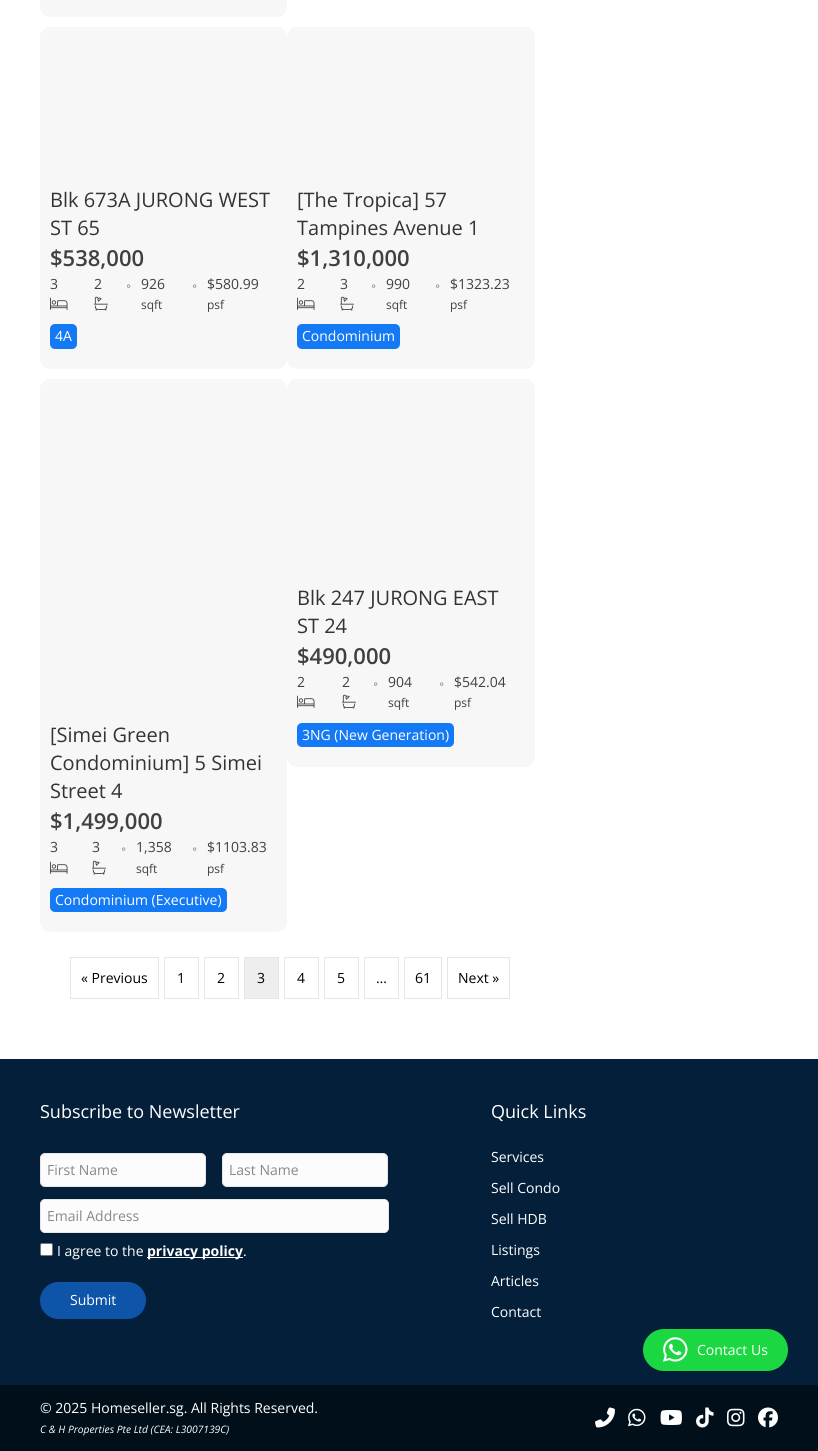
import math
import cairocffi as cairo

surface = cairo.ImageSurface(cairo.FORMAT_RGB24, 818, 1451)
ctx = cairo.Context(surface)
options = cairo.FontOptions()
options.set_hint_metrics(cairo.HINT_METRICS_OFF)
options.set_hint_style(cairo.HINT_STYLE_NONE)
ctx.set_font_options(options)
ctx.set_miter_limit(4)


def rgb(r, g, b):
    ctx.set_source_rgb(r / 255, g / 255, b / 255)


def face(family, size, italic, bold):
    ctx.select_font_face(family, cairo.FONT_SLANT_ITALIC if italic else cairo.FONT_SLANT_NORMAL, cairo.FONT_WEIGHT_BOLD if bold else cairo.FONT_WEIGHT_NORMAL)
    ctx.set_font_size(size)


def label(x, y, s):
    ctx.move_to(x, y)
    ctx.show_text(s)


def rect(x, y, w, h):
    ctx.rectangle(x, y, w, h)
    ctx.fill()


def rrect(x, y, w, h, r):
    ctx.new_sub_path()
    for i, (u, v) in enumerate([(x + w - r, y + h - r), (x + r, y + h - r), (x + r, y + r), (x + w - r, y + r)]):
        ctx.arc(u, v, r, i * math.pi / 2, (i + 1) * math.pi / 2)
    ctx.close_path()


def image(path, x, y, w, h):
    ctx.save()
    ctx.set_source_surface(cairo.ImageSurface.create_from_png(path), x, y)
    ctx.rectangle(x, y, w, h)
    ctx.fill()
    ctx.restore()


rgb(255, 255, 255)
ctx.paint()
rgb(247, 247, 247)
rrect(40, -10, 247, 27, 10)
ctx.fill()
rrect(40, 27, 247, 342, 10)
ctx.fill()
face('Open Sans', 20, 0, 0)
rgb(51, 51, 51)
label(50, 207, 'Blk 673A JURONG WEST')
label(50, 235, 'ST 65')
face('Open Sans SemiBold', 22, 0, 0)
rgb(64, 64, 64)
label(50, 266, '$538,000')
face('Open Sans', 14, 0, 0)
label(50, 289, '3')
image('image0.png', 50, 297, 18, 13)
label(94, 289, '2')
image('image1.png', 94, 296, 14, 15)
image('image2.png', 127, 284, 4, 4)
label(141, 289, '926')
face('Open Sans', 12, 0, 0)
label(141, 309, 'sqft')
image('image2.png', 193, 284, 4, 4)
face('Open Sans', 14, 0, 0)
label(207, 289, '$580.99')
face('Open Sans', 12, 0, 0)
label(207, 309, 'psf')
rgb(20, 121, 245)
rrect(50, 324, 27, 25, 5)
ctx.fill()
face('Open Sans', 14, 0, 0)
rgb(255, 255, 255)
label(55, 341, '4A')
rgb(247, 247, 247)
rrect(287, 27, 248, 342, 10)
ctx.fill()
face('Open Sans', 20, 0, 0)
rgb(51, 51, 51)
label(297, 207, '[The Tropica] 57')
label(297, 235, 'Tampines Avenue 1')
face('Open Sans SemiBold', 22, 0, 0)
rgb(64, 64, 64)
label(297, 266, '$1,310,000')
face('Open Sans', 14, 0, 0)
label(297, 289, '2')
image('image0.png', 297, 297, 18, 13)
label(340, 289, '3')
image('image1.png', 340, 296, 14, 15)
image('image2.png', 372, 284, 4, 4)
label(386, 289, '990')
face('Open Sans', 12, 0, 0)
label(386, 309, 'sqft')
image('image2.png', 436, 284, 4, 4)
face('Open Sans', 14, 0, 0)
label(450, 289, '$1323.23')
face('Open Sans', 12, 0, 0)
label(450, 309, 'psf')
rgb(20, 121, 245)
rrect(297, 324, 103, 25, 5)
ctx.fill()
face('Open Sans', 14, 0, 0)
rgb(255, 255, 255)
label(302, 341, 'Condominium')
rgb(247, 247, 247)
rrect(287, 379, 248, 388, 10)
ctx.fill()
face('Open Sans', 20, 0, 0)
rgb(51, 51, 51)
label(297, 605, 'Blk 247 JURONG EAST')
label(297, 633, 'ST 24')
face('Open Sans SemiBold', 22, 0, 0)
rgb(64, 64, 64)
label(297, 664, '$490,000')
face('Open Sans', 14, 0, 0)
label(297, 687, '2')
image('image0.png', 297, 695, 18, 13)
label(342, 687, '2')
image('image1.png', 342, 694, 14, 15)
image('image2.png', 374, 682, 4, 4)
label(388, 687, '904')
face('Open Sans', 12, 0, 0)
label(388, 707, 'sqft')
image('image2.png', 440, 682, 4, 4)
face('Open Sans', 14, 0, 0)
label(454, 687, '$542.04')
face('Open Sans', 12, 0, 0)
label(454, 707, 'psf')
rgb(20, 121, 245)
rrect(297, 723, 157, 24, 5)
ctx.fill()
face('Open Sans', 14, 0, 0)
rgb(255, 255, 255)
label(302, 740, '3NG (New Generation)')
rgb(247, 247, 247)
rrect(40, 379, 247, 553, 10)
ctx.fill()
face('Open Sans', 20, 0, 0)
rgb(51, 51, 51)
label(50, 742, '[Simei Green')
label(50, 770, 'Condominium] 5 Simei')
label(50, 798, 'Street 4')
face('Open Sans SemiBold', 22, 0, 0)
rgb(64, 64, 64)
label(50, 829, '$1,499,000')
face('Open Sans', 14, 0, 0)
label(50, 852, '3')
image('image0.png', 50, 861, 18, 13)
label(92, 852, '3')
image('image1.png', 92, 860, 14, 15)
image('image2.png', 122, 847, 4, 4)
label(136, 852, '1,358')
face('Open Sans', 12, 0, 0)
label(136, 873, 'sqft')
image('image2.png', 193, 847, 4, 4)
face('Open Sans', 14, 0, 0)
label(207, 852, '$1103.83')
face('Open Sans', 12, 0, 0)
label(207, 873, 'psf')
rgb(20, 121, 245)
rrect(50, 888, 177, 24, 5)
ctx.fill()
face('Open Sans', 14, 0, 0)
rgb(255, 255, 255)
label(55, 905, 'Condominium (Executive)')
ctx.rectangle(70.5, 957.5, 88, 41)
rgb(230, 230, 230)
ctx.set_line_width(1)
ctx.stroke()
rgb(0, 0, 0)
label(81, 983, '« Previous')
ctx.rectangle(164.5, 957.5, 34, 41)
rgb(230, 230, 230)
ctx.stroke()
rgb(0, 0, 0)
label(177, 983, '1')
ctx.rectangle(204.5, 957.5, 34, 41)
rgb(230, 230, 230)
ctx.stroke()
rgb(0, 0, 0)
label(217, 983, '2')
rgb(238, 238, 238)
ctx.rectangle(244.5, 957.5, 34, 41)
ctx.fill_preserve()
rgb(230, 230, 230)
ctx.stroke()
rgb(0, 0, 0)
label(257, 983, '3')
ctx.rectangle(284.5, 957.5, 34, 41)
rgb(230, 230, 230)
ctx.stroke()
rgb(0, 0, 0)
label(297, 983, '4')
ctx.rectangle(324.5, 957.5, 34, 41)
rgb(230, 230, 230)
ctx.stroke()
rgb(0, 0, 0)
label(337, 983, '5')
ctx.rectangle(364.5, 957.5, 34, 41)
rgb(230, 230, 230)
ctx.stroke()
rgb(0, 0, 0)
label(376, 983, '…')
ctx.rectangle(404.5, 957.5, 37, 41)
rgb(230, 230, 230)
ctx.stroke()
rgb(0, 0, 0)
label(415, 983, '61')
ctx.rectangle(447.5, 957.5, 62, 41)
rgb(230, 230, 230)
ctx.stroke()
rgb(0, 0, 0)
label(458, 983, 'Next »')
rgb(4, 31, 58)
rect(0, 1059, 818, 326)
face('Open Sans', 18, 0, 0)
rgb(255, 255, 255)
label(40, 1118, 'Subscribe to Newsletter')
rgb(252, 252, 252)
rrect(40.5, 1153.5, 165, 33, 4.5)
ctx.fill_preserve()
rgb(230, 230, 230)
ctx.stroke()
face('Open Sans', 14, 0, 0)
rgb(136, 136, 136)
label(47, 1175, 'First Name')
rgb(252, 252, 252)
rrect(222.5, 1153.5, 165, 33, 4.5)
ctx.fill_preserve()
rgb(230, 230, 230)
ctx.stroke()
rgb(136, 136, 136)
label(229, 1175, 'Last Name')
rgb(252, 252, 252)
rrect(40.5, 1199.5, 348, 33, 4.5)
ctx.fill_preserve()
rgb(230, 230, 230)
ctx.stroke()
rgb(136, 136, 136)
label(47, 1221, 'Email Address')
rgb(255, 255, 255)
rrect(40.5, 1243.5, 12, 12, 1.5)
ctx.fill_preserve()
rgb(118, 118, 118)
ctx.stroke()
rgb(255, 255, 255)
label(57, 1256, 'I agree to the')
rect(147, 1257, 96, 1)
face('Open Sans', 14, 0, 1)
label(147, 1256, 'privacy policy')
face('Open Sans', 14, 0, 0)
label(243, 1256, '.')
rgb(14, 84, 169)
rrect(40, 1282, 106, 37, 18.5)
ctx.fill()
rgb(255, 255, 255)
label(70, 1305, 'Submit')
face('Open Sans', 18, 0, 0)
label(491, 1118, 'Quick Links')
face('Open Sans', 14, 0, 0)
label(491, 1162, 'Services')
label(491, 1193, 'Sell Condo')
label(491, 1224, 'Sell HDB')
label(491, 1255, 'Listings')
label(491, 1286, 'Articles')
label(491, 1317, 'Contact')
rgb(27, 215, 65)
rrect(643, 1329, 145, 42, 21)
ctx.fill()
image('image3.png', 663, 1337, 25, 25)
rgb(255, 255, 255)
label(697, 1355, 'Contact Us')
rgb(0, 15, 26)
rect(0, 1385, 818, 66)
rgb(255, 255, 255)
label(40, 1413, '© 2025 Homeseller.sg. All Rights Reserved.')
face('Open Sans', 10.25, 1, 0)
label(40, 1433, 'C & H Properties Pte Ltd (CEA: L3007139C)')
image('image4.png', 595, 1407, 20, 21)
image('image5.png', 628, 1408, 18, 19)
image('image6.png', 660, 1410, 22, 15)
image('image7.png', 696, 1407, 18, 21)
image('image8.png', 727, 1408, 18, 19)
image('image9.png', 758, 1407, 20, 21)
surface.write_to_png('render.png')
